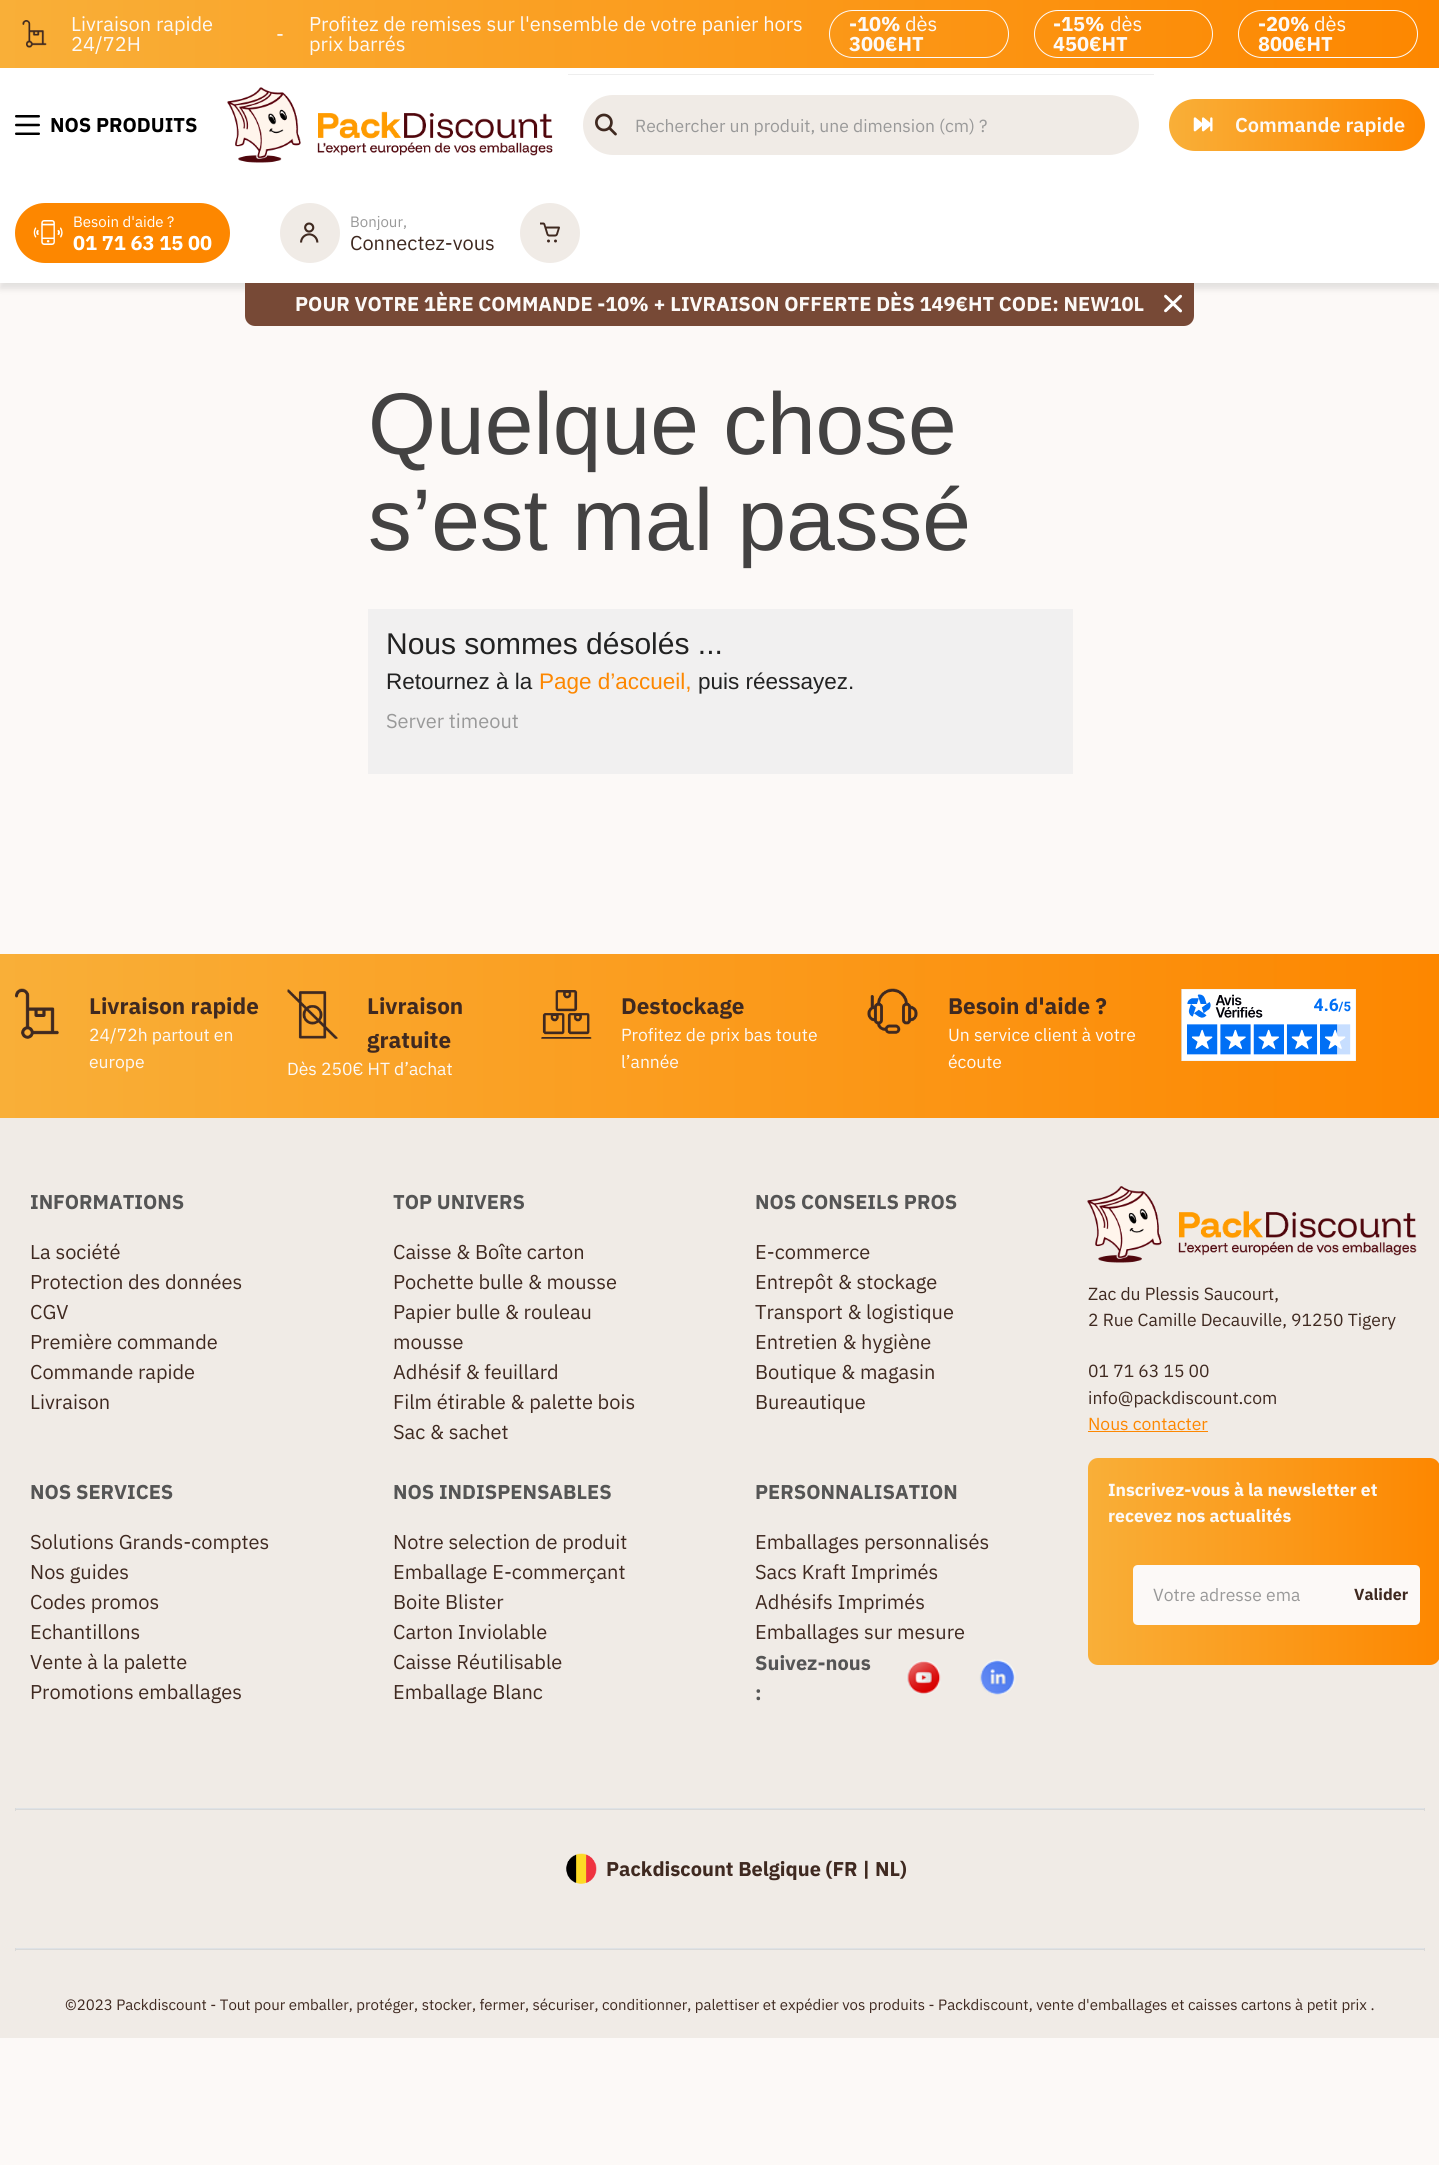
import math
import cairocffi as cairo

surface = cairo.ImageSurface(cairo.FORMAT_RGB24, 1439, 2165)
ctx = cairo.Context(surface)
options = cairo.FontOptions()
options.set_hint_metrics(cairo.HINT_METRICS_OFF)
options.set_hint_style(cairo.HINT_STYLE_NONE)
ctx.set_font_options(options)
ctx.set_miter_limit(4)


def rgb(r, g, b):
    ctx.set_source_rgb(r / 255, g / 255, b / 255)


def face(family, size, italic, bold):
    ctx.select_font_face(family, cairo.FONT_SLANT_ITALIC if italic else cairo.FONT_SLANT_NORMAL, cairo.FONT_WEIGHT_BOLD if bold else cairo.FONT_WEIGHT_NORMAL)
    ctx.set_font_size(size)


def label(x, y, s):
    ctx.move_to(x, y)
    ctx.show_text(s)


def rect(x, y, w, h):
    ctx.rectangle(x, y, w, h)
    ctx.fill()


def rrect(x, y, w, h, r):
    ctx.new_sub_path()
    for i, (u, v) in enumerate([(x + w - r, y + h - r), (x + r, y + h - r), (x + r, y + r), (x + w - r, y + r)]):
        ctx.arc(u, v, r, i * math.pi / 2, (i + 1) * math.pi / 2)
    ctx.close_path()


def soft_shadow(x, y, w, h, r, blur, alpha):
    ctx.push_group_with_content(cairo.CONTENT_ALPHA)
    ctx.set_operator(cairo.OPERATOR_SOURCE)
    for i in range(15, -16, -2):
        e = blur * i / 6
        if min(w, h) + 2 * e > 0:
            ctx.set_source_rgba(0, 0, 0, alpha * math.erfc((i - 1) / 8.5) / 2)
            rrect(x - e, y - e, w + 2 * e, h + 2 * e, max(0, min(r + e + blur * .6, min(w, h) / 2 + e)))
            ctx.fill()
    ctx.mask(ctx.pop_group())


def image(path, x, y, w, h):
    ctx.save()
    ctx.set_source_surface(cairo.ImageSurface.create_from_png(path), x, y)
    ctx.rectangle(x, y, w, h)
    ctx.fill()
    ctx.restore()


rgb(252, 249, 247)
ctx.paint()
rgb(0, 0, 0)
soft_shadow(0, 74, 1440, 215, 0, 3, 0.1)
gradient = cairo.LinearGradient(0, 33, 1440, 34)
gradient.add_color_stop_rgba(0, 0.976, 0.686, 0.22, 1)
gradient.add_color_stop_rgba(1, 0.992, 0.529, 0, 1)
ctx.set_source(gradient)
rect(0, 0, 1439, 68)
image('image0.png', 22, 20, 25, 28)
face('IBM Plex Sans', 20, 0, 0)
rgb(252, 249, 247)
label(71, 31, 'Livraison rapide')
label(71, 51, '24/72H')
label(276, 41, '-')
label(309, 31, 'Profitez de remises sur l\'ensemble de votre panier hors')
label(309, 51, 'prix barrés')
rrect(829.5, 10.5, 179, 47, 23.5)
ctx.set_line_width(1)
ctx.stroke()
face('IBM Plex Sans', 20, 0, 1)
label(849, 31, '-10%')
face('IBM Plex Sans', 20, 0, 0)
label(905, 31, 'dès')
face('IBM Plex Sans', 20, 0, 1)
label(849, 51, '300€HT')
rrect(1034.5, 10.5, 178, 47, 23.5)
ctx.stroke()
label(1053, 31, '-15%')
face('IBM Plex Sans', 20, 0, 0)
label(1110, 31, 'dès')
face('IBM Plex Sans', 20, 0, 1)
label(1053, 51, '450€HT')
rrect(1238.5, 10.5, 179, 47, 23.5)
ctx.stroke()
label(1258, 31, '-20%')
face('IBM Plex Sans', 20, 0, 0)
label(1314, 31, 'dès')
face('IBM Plex Sans', 20, 0, 1)
label(1258, 51, '800€HT')
rgb(255, 255, 255)
rect(0, 68, 1439, 215)
image('image1.png', 15, 115, 25, 20)
rgb(0, 0, 0)
label(50, 132, 'NOS PRODUITS')
image('image2.png', 227, 87, 326, 76)
rgb(238, 238, 238)
rect(568, 74, 586, 1)
rgb(240, 235, 230)
rrect(584.5, 96.5, 553, 57, 28.5)
ctx.fill_preserve()
ctx.set_line_width(3)
ctx.stroke()
image('image3.png', 595, 113, 22, 23)
face('IBM Plex Sans', 17.5, 0, 0)
rgb(153, 153, 153)
label(635, 132, 'Rechercher un produit, une dimension (cm) ?')
gradient = cairo.LinearGradient(1169, 125, 1425, 125)
gradient.add_color_stop_rgba(0, 0.976, 0.686, 0.22, 1)
gradient.add_color_stop_rgba(1, 0.992, 0.529, 0, 1)
ctx.set_source(gradient)
rrect(1169, 99, 256, 52, 26)
ctx.fill()
image('image4.png', 1193, 117, 20, 15)
face('IBM Plex Sans SemiBold', 20, 0, 0)
rgb(252, 249, 247)
label(1235, 132, 'Commande rapide')
rgb(253, 135, 0)
rrect(15, 203, 215, 60, 30)
ctx.fill()
image('image5.png', 33, 220, 30, 25)
face('IBM Plex Sans', 15, 0, 0)
rgb(255, 255, 255)
label(73, 227, 'Besoin d\'aide ?')
face('IBM Plex Sans', 20, 0, 1)
label(73, 250, '01 71 63 15 00')
rgb(240, 235, 230)
ctx.new_path()
ctx.arc(310, 233, 30, 0, 2 * math.pi)
ctx.fill()
image('image6.png', 300, 222, 19, 21)
face('IBM Plex Sans', 15, 0, 0)
rgb(153, 153, 153)
label(350, 227, 'Bonjour,')
face('IBM Plex Sans', 20, 0, 0)
rgb(63, 41, 32)
label(350, 250, 'Connectez-vous')
rgb(240, 235, 230)
ctx.new_path()
ctx.arc(550, 233, 30, 0, 2 * math.pi)
ctx.fill()
image('image7.png', 540, 222, 20, 21)
rgb(119, 73, 54)
ctx.new_path()
ctx.move_to(245, 283)
ctx.line_to(1194, 283)
ctx.line_to(1194, 316)
ctx.curve_to(1194, 321.5, 1189.5, 326, 1184, 326)
ctx.line_to(255, 326)
ctx.curve_to(249.5, 326, 245, 321.5, 245, 316)
ctx.close_path()
ctx.fill()
face('IBM Plex Sans', 20, 0, 1)
rgb(252, 249, 247)
label(295, 311, 'POUR VOTRE 1ÈRE COMMANDE -10% + LIVRAISON OFFERTE DÈS 149€HT CODE: NEW10L')
image('image8.png', 1164, 294, 18, 19)
face('Liberation Sans', 87.5, 0, 0)
rgb(67, 66, 66)
label(368, 454, 'Quelque chose')
label(368, 550, 's’est mal passé')
rgb(241, 240, 240)
rect(368, 609, 705, 165)
face('Liberation Sans', 30, 0, 0)
rgb(34, 34, 34)
label(386, 654, 'Nous sommes désolés ...')
face('Liberation Sans', 22.5, 0, 0)
label(386, 689, 'Retournez à la')
rgb(253, 135, 0)
label(539, 689, 'Page d’accueil,')
rgb(34, 34, 34)
label(698, 689, 'puis réessayez.')
face('IBM Plex Sans', 20, 0, 0)
rgb(153, 153, 153)
label(386, 728, 'Server timeout')
gradient = cairo.LinearGradient(0, 1036, 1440, 1036)
gradient.add_color_stop_rgba(0, 0.976, 0.686, 0.22, 1)
gradient.add_color_stop_rgba(1, 0.992, 0.529, 0, 1)
ctx.set_source(gradient)
rect(0, 954, 1439, 164)
image('image9.png', 15, 988, 44, 51)
face('IBM Plex Sans', 22.5, 0, 1)
rgb(63, 41, 32)
label(89, 1014, 'Livraison rapide')
face('IBM Plex Sans', 17.5, 0, 0)
rgb(252, 249, 247)
label(89, 1041, '24/72h partout en')
label(89, 1068, 'europe')
image('image10.png', 287, 989, 51, 50)
face('IBM Plex Sans', 22.5, 0, 1)
rgb(63, 41, 32)
label(367, 1014, 'Livraison')
label(367, 1048, 'gratuite')
face('IBM Plex Sans', 17.5, 0, 0)
rgb(252, 249, 247)
label(287, 1075, 'Dès 250€ HT d’achat')
image('image11.png', 541, 990, 51, 49)
face('IBM Plex Sans', 22.5, 0, 1)
rgb(63, 41, 32)
label(621, 1014, 'Destockage')
face('IBM Plex Sans', 17.5, 0, 0)
rgb(252, 249, 247)
label(621, 1041, 'Profitez de prix bas toute')
label(621, 1068, 'l’année')
image('image12.png', 867, 988, 51, 46)
face('IBM Plex Sans', 22.5, 0, 1)
rgb(63, 41, 32)
label(948, 1014, 'Besoin d\'aide ?')
face('IBM Plex Sans', 17.5, 0, 0)
rgb(252, 249, 247)
label(948, 1041, 'Un service client à votre')
label(948, 1068, 'écoute')
image('image13.png', 1181, 989, 175, 72)
rgb(240, 235, 230)
rect(0, 1118, 1439, 920)
face('IBM Plex Sans', 20, 0, 1)
rgb(85, 85, 85)
label(30, 1209, 'INFORMATIONS')
face('IBM Plex Sans', 20, 0, 0)
rgb(63, 41, 32)
label(30, 1259, 'La société')
label(30, 1289, 'Protection des données')
label(30, 1319, 'CGV')
label(30, 1349, 'Première commande')
label(30, 1379, 'Commande rapide')
label(30, 1409, 'Livraison')
face('IBM Plex Sans', 20, 0, 1)
rgb(85, 85, 85)
label(393, 1209, 'TOP UNIVERS')
face('IBM Plex Sans', 20, 0, 0)
rgb(63, 41, 32)
label(393, 1259, 'Caisse & Boîte carton')
label(393, 1289, 'Pochette bulle & mousse')
label(393, 1319, 'Papier bulle & rouleau')
label(393, 1349, 'mousse')
label(393, 1379, 'Adhésif & feuillard')
label(393, 1409, 'Film étirable & palette bois')
label(393, 1439, 'Sac & sachet')
face('IBM Plex Sans', 20, 0, 1)
rgb(85, 85, 85)
label(755, 1209, 'NOS CONSEILS PROS')
face('IBM Plex Sans', 20, 0, 0)
rgb(63, 41, 32)
label(755, 1259, 'E-commerce')
label(755, 1289, 'Entrepôt & stockage')
label(755, 1319, 'Transport & logistique')
label(755, 1349, 'Entretien & hygiène')
label(755, 1379, 'Boutique & magasin')
label(755, 1409, 'Bureautique')
face('IBM Plex Sans', 20, 0, 1)
rgb(85, 85, 85)
label(30, 1499, 'NOS SERVICES')
face('IBM Plex Sans', 20, 0, 0)
rgb(63, 41, 32)
label(30, 1549, 'Solutions Grands-comptes')
label(30, 1579, 'Nos guides')
label(30, 1609, 'Codes promos')
label(30, 1639, 'Echantillons')
label(30, 1669, 'Vente à la palette')
label(30, 1699, 'Promotions emballages')
face('IBM Plex Sans', 20, 0, 1)
rgb(85, 85, 85)
label(393, 1499, 'NOS INDISPENSABLES')
face('IBM Plex Sans', 20, 0, 0)
rgb(63, 41, 32)
label(393, 1549, 'Notre selection de produit')
label(393, 1579, 'Emballage E-commerçant')
label(393, 1609, 'Boite Blister')
label(393, 1639, 'Carton Inviolable')
label(393, 1669, 'Caisse Réutilisable')
label(393, 1699, 'Emballage Blanc')
face('IBM Plex Sans', 20, 0, 1)
rgb(85, 85, 85)
label(755, 1499, 'PERSONNALISATION')
face('IBM Plex Sans', 20, 0, 0)
rgb(63, 41, 32)
label(755, 1549, 'Emballages personnalisés')
label(755, 1579, 'Sacs Kraft Imprimés')
label(755, 1609, 'Adhésifs Imprimés')
label(755, 1639, 'Emballages sur mesure')
face('IBM Plex Sans', 20, 0, 1)
rgb(85, 85, 85)
label(755, 1670, 'Suivez-nous')
label(755, 1700, ':')
image('image14.png', 906, 1660, 35, 34)
image('image15.png', 979, 1659, 37, 36)
image('image16.png', 1087, 1186, 330, 77)
face('IBM Plex Sans', 17.5, 0, 0)
rgb(63, 41, 32)
label(1088, 1300, 'Zac du Plessis Saucourt,')
label(1088, 1326, '2 Rue Camille Decauville, 91250 Tigery')
label(1088, 1377, '01 71 63 15 00')
label(1088, 1404, 'info@packdiscount.com')
rgb(253, 135, 0)
label(1088, 1430, 'Nous contacter')
rect(1088, 1431, 120, 1)
gradient = cairo.LinearGradient(1088, 1561, 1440, 1561)
gradient.add_color_stop_rgba(0, 0.976, 0.686, 0.22, 1)
gradient.add_color_stop_rgba(1, 0.992, 0.529, 0, 1)
ctx.set_source(gradient)
rrect(1088, 1458, 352, 207, 10)
ctx.fill()
face('IBM Plex Sans', 17.5, 0, 1)
rgb(252, 249, 247)
label(1108, 1496, 'Inscrivez-vous à la newsletter et')
label(1108, 1522, 'recevez nos actualités')
ctx.new_path()
ctx.move_to(1138, 1565)
ctx.line_to(1341, 1565)
ctx.line_to(1341, 1625)
ctx.line_to(1138, 1625)
ctx.curve_to(1135, 1625, 1133, 1623, 1133, 1620)
ctx.line_to(1133, 1570)
ctx.curve_to(1133, 1567, 1135, 1565, 1138, 1565)
ctx.close_path()
ctx.fill()
face('IBM Plex Sans', 17.5, 0, 0)
rgb(153, 153, 153)
label(1153, 1601, 'Votre adresse ema')
rgb(252, 249, 247)
ctx.new_path()
ctx.move_to(1341, 1565)
ctx.line_to(1415, 1565)
ctx.curve_to(1418, 1565, 1420, 1567, 1420, 1570)
ctx.line_to(1420, 1620)
ctx.curve_to(1420, 1623, 1418, 1625, 1415, 1625)
ctx.line_to(1341, 1625)
ctx.close_path()
ctx.fill()
face('IBM Plex Sans', 16, 0, 1)
rgb(63, 41, 32)
label(1354, 1600, 'Valider')
rgb(222, 226, 230)
rect(15, 1808, 1410, 1)
rgb(217, 217, 217)
rect(1424, 1808, 1, 3)
rect(15, 1809, 1410, 1)
rect(15, 1808, 1, 3)
image('image17.png', 566, 1853, 31, 31)
face('IBM Plex Sans', 20, 0, 1)
rgb(63, 41, 32)
label(606, 1876, 'Packdiscount Belgique (FR | NL)')
rgb(222, 226, 230)
rect(15, 1948, 1410, 1)
rgb(217, 217, 217)
rect(1424, 1948, 1, 3)
rect(15, 1949, 1410, 1)
rect(15, 1948, 1, 3)
face('IBM Plex Sans', 15, 0, 0)
rgb(63, 41, 32)
label(65, 2010, '©2023 Packdiscount - Tout pour emballer, protéger, stocker, fermer, sécuriser, conditionner, palettiser et expédier vos produits - Packdiscount, vente d\'emballages et caisses cartons à petit prix .')
surface.write_to_png('render.png')
